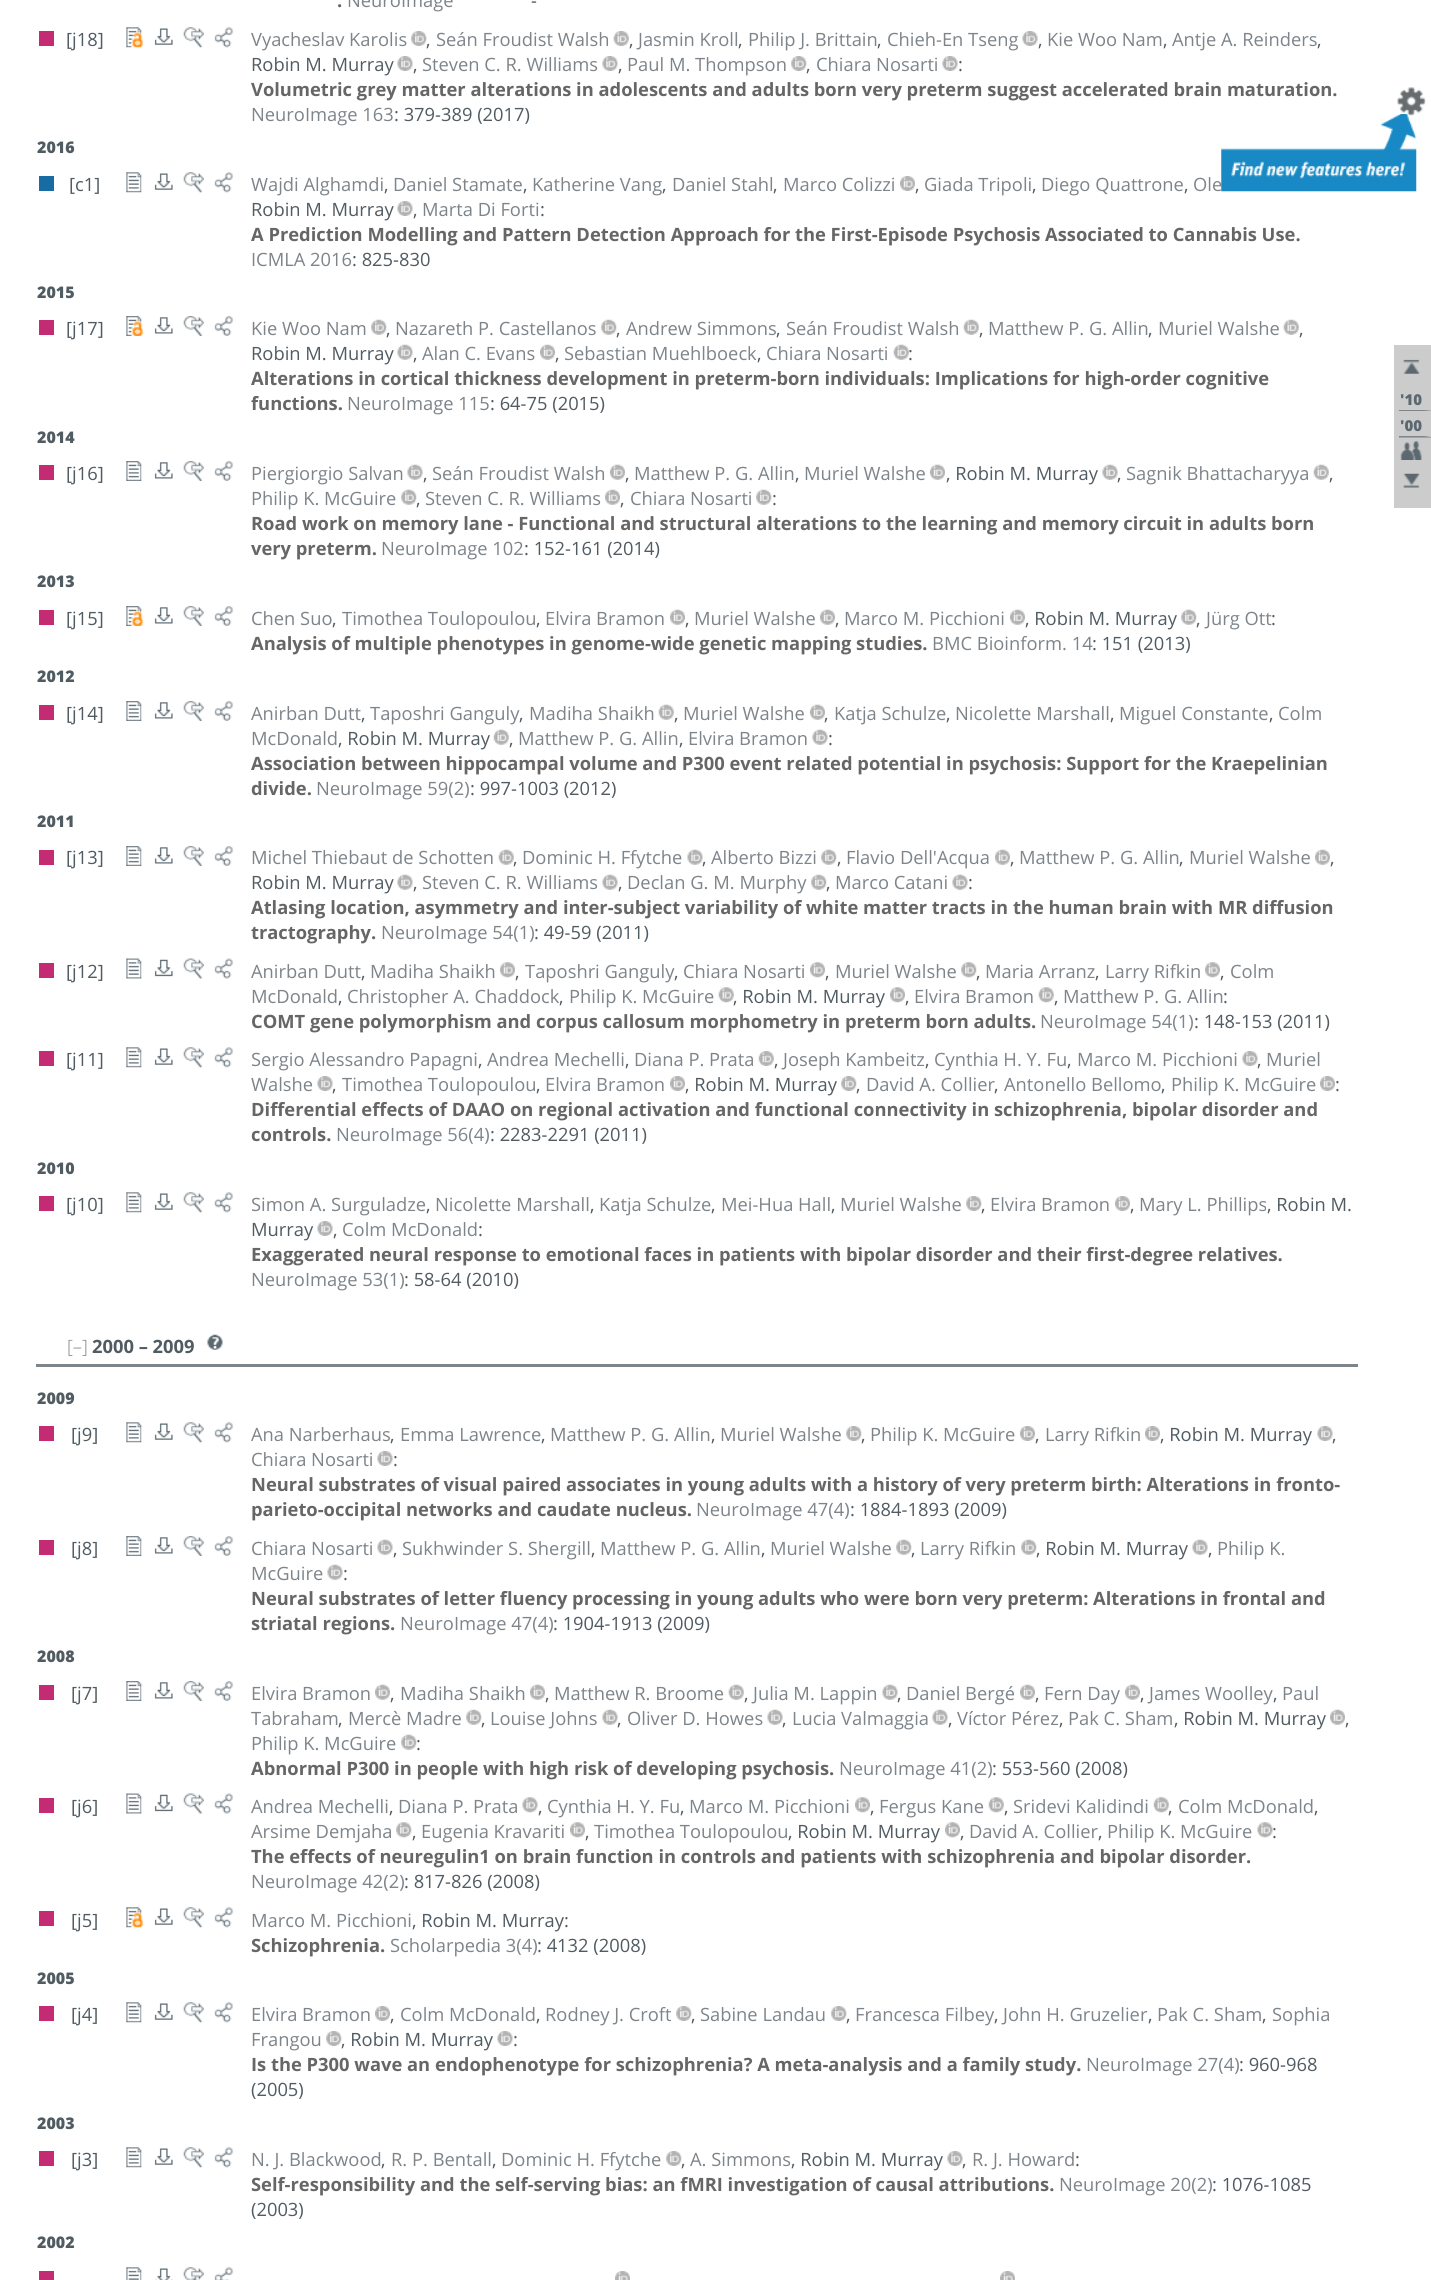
import math
import cairocffi as cairo

surface = cairo.ImageSurface(cairo.FORMAT_RGB24, 1431, 2280)
ctx = cairo.Context(surface)
options = cairo.FontOptions()
options.set_hint_metrics(cairo.HINT_METRICS_OFF)
options.set_hint_style(cairo.HINT_STYLE_NONE)
ctx.set_font_options(options)
ctx.set_miter_limit(4)


def rgb(r, g, b):
    ctx.set_source_rgb(r / 255, g / 255, b / 255)


def face(family, size, italic, bold):
    ctx.select_font_face(family, cairo.FONT_SLANT_ITALIC if italic else cairo.FONT_SLANT_NORMAL, cairo.FONT_WEIGHT_BOLD if bold else cairo.FONT_WEIGHT_NORMAL)
    ctx.set_font_size(size)


def label(x, y, s):
    ctx.move_to(x, y)
    ctx.show_text(s)


def rect(x, y, w, h):
    ctx.rectangle(x, y, w, h)
    ctx.fill()


def image(path, x, y, w, h):
    ctx.save()
    ctx.set_source_surface(cairo.ImageSurface.create_from_png(path), x, y)
    ctx.rectangle(x, y, w, h)
    ctx.fill()
    ctx.restore()


rgb(255, 255, 255)
ctx.paint()
face('Open Sans', 18.33, 0, 0)
rgb(125, 132, 138)
label(347, 7, 'NeuroImage')
rgb(80, 91, 98)
label(531, 7, '-')
face('Open Sans', 18.33, 0, 1)
rgb(102, 102, 102)
label(337, 7, '.')
rgb(195, 43, 114)
rect(39, 31, 15, 15)
face('Open Sans', 18.33, 0, 0)
rgb(80, 91, 98)
label(66, 46, '[j18]')
image('image0.png', 126, 27, 18, 21)
image('image1.png', 154, 28, 19, 17)
image('image2.png', 183, 27, 21, 21)
image('image3.png', 214, 27, 20, 21)
rgb(125, 132, 138)
label(251, 46, 'Vyacheslav Karolis')
image('image4.png', 411, 31, 16, 15)
rgb(80, 91, 98)
label(426, 46, ',')
rgb(125, 132, 138)
label(436, 46, 'Seán Froudist Walsh')
image('image5.png', 613, 31, 16, 15)
rgb(80, 91, 98)
label(629, 46, ',')
rgb(125, 132, 138)
label(638, 46, 'Jasmin Kroll')
rgb(80, 91, 98)
label(738, 46, ',')
rgb(125, 132, 138)
label(748, 46, 'Philip J. Brittain')
rgb(80, 91, 98)
label(877, 46, ',')
rgb(125, 132, 138)
label(887, 46, 'Chieh-En Tseng')
image('image6.png', 1022, 31, 16, 15)
rgb(80, 91, 98)
label(1038, 46, ',')
rgb(125, 132, 138)
label(1047, 46, 'Kie Woo Nam')
rgb(80, 91, 98)
label(1163, 46, ',')
rgb(125, 132, 138)
label(1172, 46, 'Antje A. Reinders')
rgb(80, 91, 98)
label(1317, 46, ',')
label(251, 71, 'Robin M. Murray')
image('image6.png', 397, 56, 16, 15)
label(413, 71, ',')
rgb(125, 132, 138)
label(422, 71, 'Steven C. R. Williams')
image('image7.png', 602, 56, 16, 15)
rgb(80, 91, 98)
label(618, 71, ',')
rgb(125, 132, 138)
label(627, 71, 'Paul M. Thompson')
image('image4.png', 791, 56, 16, 15)
rgb(80, 91, 98)
label(806, 71, ',')
rgb(125, 132, 138)
label(816, 71, 'Chiara Nosarti')
image('image6.png', 942, 56, 16, 15)
rgb(80, 91, 98)
label(958, 71, ':')
face('Open Sans', 18.33, 0, 1)
rgb(102, 102, 102)
label(251, 96, 'Volumetric grey matter alterations in adolescents and adults born very preterm suggest accelerated brain maturation.')
face('Open Sans', 18.33, 0, 0)
rgb(125, 132, 138)
label(251, 121, 'NeuroImage 163')
rgb(80, 91, 98)
label(394, 121, ': 379-389 (2017)')
face('Open Sans ExtraBold', 16, 0, 0)
label(37, 153, '2016')
rgb(25, 108, 163)
rect(39, 176, 15, 15)
face('Open Sans', 18.33, 0, 0)
rgb(80, 91, 98)
label(69, 191, '[c1]')
image('image8.png', 126, 172, 16, 21)
image('image1.png', 154, 173, 19, 17)
image('image2.png', 183, 172, 21, 21)
image('image3.png', 214, 172, 20, 21)
rgb(125, 132, 138)
label(251, 191, 'Wajdi Alghamdi')
rgb(80, 91, 98)
label(384, 191, ',')
rgb(125, 132, 138)
label(393, 191, 'Daniel Stamate')
rgb(80, 91, 98)
label(523, 191, ',')
rgb(125, 132, 138)
label(532, 191, 'Katherine Vang')
rgb(80, 91, 98)
label(662, 191, ',')
rgb(125, 132, 138)
label(672, 191, 'Daniel Stahl')
rgb(80, 91, 98)
label(773, 191, ',')
rgb(125, 132, 138)
label(783, 191, 'Marco Colizzi')
image('image9.png', 900, 176, 15, 15)
rgb(80, 91, 98)
label(915, 191, ',')
rgb(125, 132, 138)
label(924, 191, 'Giada Tripoli')
rgb(80, 91, 98)
label(1032, 191, ',')
rgb(125, 132, 138)
label(1041, 191, 'Diego Quattrone')
rgb(80, 91, 98)
label(1184, 191, ',')
rgb(125, 132, 138)
label(1193, 191, 'Ole')
rgb(80, 91, 98)
label(251, 216, 'Robin M. Murray')
image('image6.png', 397, 201, 16, 15)
label(413, 216, ',')
rgb(125, 132, 138)
label(422, 216, 'Marta Di Forti')
rgb(80, 91, 98)
label(540, 216, ':')
face('Open Sans', 18.33, 0, 1)
rgb(102, 102, 102)
label(251, 241, 'A Prediction Modelling and Pattern Detection Approach for the First-Episode Psychosis Associated to Cannabis Use.')
face('Open Sans', 18.33, 0, 0)
rgb(125, 132, 138)
label(251, 266, 'ICMLA 2016')
rgb(80, 91, 98)
label(352, 266, ': 825-830')
face('Open Sans ExtraBold', 16, 0, 0)
label(37, 298, '2015')
rgb(195, 43, 114)
rect(39, 320, 15, 15)
face('Open Sans', 18.33, 0, 0)
rgb(80, 91, 98)
label(66, 335, '[j17]')
image('image10.png', 126, 316, 18, 20)
image('image11.png', 154, 317, 19, 17)
image('image12.png', 183, 316, 21, 20)
image('image13.png', 214, 316, 20, 20)
rgb(125, 132, 138)
label(251, 335, 'Kie Woo Nam')
image('image14.png', 371, 319, 16, 16)
rgb(80, 91, 98)
label(386, 335, ',')
rgb(125, 132, 138)
label(395, 335, 'Nazareth P. Castellanos')
image('image14.png', 601, 319, 16, 16)
rgb(80, 91, 98)
label(616, 335, ',')
rgb(125, 132, 138)
label(626, 335, 'Andrew Simmons')
rgb(80, 91, 98)
label(776, 335, ',')
rgb(125, 132, 138)
label(786, 335, 'Seán Froudist Walsh')
image('image15.png', 963, 319, 16, 16)
rgb(80, 91, 98)
label(979, 335, ',')
rgb(125, 132, 138)
label(988, 335, 'Matthew P. G. Allin')
rgb(80, 91, 98)
label(1148, 335, ',')
rgb(125, 132, 138)
label(1158, 335, 'Muriel Walshe')
image('image16.png', 1283, 319, 16, 16)
rgb(80, 91, 98)
label(1299, 335, ',')
label(251, 360, 'Robin M. Murray')
image('image17.png', 397, 344, 16, 16)
label(413, 360, ',')
rgb(125, 132, 138)
label(422, 360, 'Alan C. Evans')
image('image18.png', 540, 344, 15, 16)
rgb(80, 91, 98)
label(555, 360, ',')
rgb(125, 132, 138)
label(564, 360, 'Sebastian Muehlboeck')
rgb(80, 91, 98)
label(757, 360, ',')
rgb(125, 132, 138)
label(766, 360, 'Chiara Nosarti')
image('image15.png', 893, 344, 16, 16)
rgb(80, 91, 98)
label(908, 360, ':')
face('Open Sans', 18.33, 0, 1)
rgb(102, 102, 102)
label(251, 385, 'Alterations in cortical thickness development in preterm-born individuals: Implications for high-order cognitive')
label(251, 410, 'functions.')
face('Open Sans', 18.33, 0, 0)
rgb(125, 132, 138)
label(347, 410, 'NeuroImage 115')
rgb(80, 91, 98)
label(490, 410, ': 64-75 (2015)')
face('Open Sans ExtraBold', 16, 0, 0)
label(37, 443, '2014')
rgb(195, 43, 114)
rect(39, 465, 15, 15)
face('Open Sans', 18.33, 0, 0)
rgb(80, 91, 98)
label(66, 480, '[j16]')
image('image19.png', 126, 461, 16, 20)
image('image11.png', 154, 462, 19, 17)
image('image12.png', 183, 461, 21, 20)
image('image13.png', 214, 461, 20, 20)
rgb(125, 132, 138)
label(251, 480, 'Piergiorgio Salvan')
image('image17.png', 407, 464, 16, 16)
rgb(80, 91, 98)
label(423, 480, ',')
rgb(125, 132, 138)
label(432, 480, 'Seán Froudist Walsh')
image('image20.png', 610, 464, 15, 16)
rgb(80, 91, 98)
label(625, 480, ',')
rgb(125, 132, 138)
label(634, 480, 'Matthew P. G. Allin')
rgb(80, 91, 98)
label(795, 480, ',')
rgb(125, 132, 138)
label(804, 480, 'Muriel Walshe')
image('image18.png', 930, 464, 15, 16)
rgb(80, 91, 98)
label(946, 480, ', Robin M. Murray')
image('image17.png', 1102, 464, 16, 16)
label(1117, 480, ',')
rgb(125, 132, 138)
label(1126, 480, 'Sagnik Bhattacharyya')
image('image16.png', 1313, 464, 16, 16)
rgb(80, 91, 98)
label(1329, 480, ',')
rgb(125, 132, 138)
label(251, 505, 'Philip K. McGuire')
image('image14.png', 401, 489, 16, 16)
rgb(80, 91, 98)
label(416, 505, ',')
rgb(125, 132, 138)
label(425, 505, 'Steven C. R. Williams')
image('image20.png', 605, 489, 15, 16)
rgb(80, 91, 98)
label(620, 505, ',')
rgb(125, 132, 138)
label(630, 505, 'Chiara Nosarti')
image('image14.png', 756, 489, 16, 16)
rgb(80, 91, 98)
label(772, 505, ':')
face('Open Sans', 18.33, 0, 1)
rgb(102, 102, 102)
label(251, 530, 'Road work on memory lane - Functional and structural alterations to the learning and memory circuit in adults born')
label(251, 555, 'very preterm.')
face('Open Sans', 18.33, 0, 0)
rgb(125, 132, 138)
label(381, 555, 'NeuroImage 102')
rgb(80, 91, 98)
label(524, 555, ': 152-161 (2014)')
face('Open Sans ExtraBold', 16, 0, 0)
label(37, 587, '2013')
rgb(195, 43, 114)
rect(39, 610, 15, 15)
face('Open Sans', 18.33, 0, 0)
rgb(80, 91, 98)
label(66, 625, '[j15]')
image('image10.png', 126, 606, 18, 20)
image('image11.png', 154, 607, 19, 17)
image('image12.png', 183, 606, 21, 20)
image('image13.png', 214, 606, 20, 20)
rgb(125, 132, 138)
label(251, 625, 'Chen Suo')
rgb(80, 91, 98)
label(332, 625, ',')
rgb(125, 132, 138)
label(342, 625, 'Timothea Toulopoulou')
rgb(80, 91, 98)
label(536, 625, ',')
rgb(125, 132, 138)
label(545, 625, 'Elvira Bramon')
image('image18.png', 670, 609, 15, 16)
rgb(80, 91, 98)
label(685, 625, ',')
rgb(125, 132, 138)
label(694, 625, 'Muriel Walshe')
image('image18.png', 820, 609, 15, 16)
rgb(80, 91, 98)
label(835, 625, ',')
rgb(125, 132, 138)
label(844, 625, 'Marco M. Picchioni')
image('image21.png', 1010, 609, 15, 16)
rgb(80, 91, 98)
label(1025, 625, ', Robin M. Murray')
image('image14.png', 1181, 609, 16, 16)
label(1196, 625, ',')
rgb(125, 132, 138)
label(1206, 625, 'Jürg Ott')
rgb(80, 91, 98)
label(1271, 625, ':')
face('Open Sans', 18.33, 0, 1)
rgb(102, 102, 102)
label(251, 650, 'Analysis of multiple phenotypes in genome-wide genetic mapping studies.')
face('Open Sans', 18.33, 0, 0)
rgb(125, 132, 138)
label(932, 650, 'BMC Bioinform. 14')
rgb(80, 91, 98)
label(1092, 650, ': 151 (2013)')
face('Open Sans ExtraBold', 16, 0, 0)
label(37, 682, '2012')
rgb(195, 43, 114)
rect(39, 705, 15, 15)
face('Open Sans', 18.33, 0, 0)
rgb(80, 91, 98)
label(66, 720, '[j14]')
image('image19.png', 126, 701, 16, 20)
image('image11.png', 154, 702, 19, 17)
image('image12.png', 183, 701, 21, 20)
image('image13.png', 214, 701, 20, 20)
rgb(125, 132, 138)
label(251, 720, 'Anirban Dutt')
rgb(80, 91, 98)
label(361, 720, ',')
rgb(125, 132, 138)
label(370, 720, 'Taposhri Ganguly')
rgb(80, 91, 98)
label(519, 720, ',')
rgb(125, 132, 138)
label(529, 720, 'Madiha Shaikh')
image('image16.png', 658, 704, 16, 16)
rgb(80, 91, 98)
label(674, 720, ',')
rgb(125, 132, 138)
label(683, 720, 'Muriel Walshe')
image('image18.png', 810, 704, 15, 16)
rgb(80, 91, 98)
label(824, 720, ',')
rgb(125, 132, 138)
label(834, 720, 'Katja Schulze')
rgb(80, 91, 98)
label(946, 720, ',')
rgb(125, 132, 138)
label(955, 720, 'Nicolette Marshall')
rgb(80, 91, 98)
label(1110, 720, ',')
rgb(125, 132, 138)
label(1119, 720, 'Miguel Constante')
rgb(80, 91, 98)
label(1269, 720, ',')
rgb(125, 132, 138)
label(1278, 720, 'Colm')
label(251, 745, 'McDonald')
rgb(80, 91, 98)
label(338, 745, ', Robin M. Murray')
image('image16.png', 493, 729, 16, 16)
label(509, 745, ',')
rgb(125, 132, 138)
label(518, 745, 'Matthew P. G. Allin')
rgb(80, 91, 98)
label(679, 745, ',')
rgb(125, 132, 138)
label(688, 745, 'Elvira Bramon')
image('image17.png', 812, 729, 16, 16)
rgb(80, 91, 98)
label(828, 745, ':')
face('Open Sans', 18.33, 0, 1)
rgb(102, 102, 102)
label(251, 770, 'Association between hippocampal volume and P300 event related potential in psychosis: Support for the Kraepelinian')
label(251, 795, 'divide.')
face('Open Sans', 18.33, 0, 0)
rgb(125, 132, 138)
label(316, 795, 'NeuroImage 59(2)')
rgb(80, 91, 98)
label(470, 795, ': 997-1003 (2012)')
face('Open Sans ExtraBold', 16, 0, 0)
label(37, 827, '2011')
rgb(195, 43, 114)
rect(39, 850, 15, 15)
face('Open Sans', 18.33, 0, 0)
rgb(80, 91, 98)
label(66, 864, '[j13]')
image('image19.png', 126, 846, 16, 20)
image('image11.png', 154, 847, 19, 17)
image('image12.png', 183, 846, 21, 20)
image('image13.png', 214, 846, 20, 20)
rgb(125, 132, 138)
label(251, 864, 'Michel Thiebaut de Schotten')
image('image16.png', 498, 849, 16, 16)
rgb(80, 91, 98)
label(513, 864, ',')
rgb(125, 132, 138)
label(522, 864, 'Dominic H. Ffytche')
image('image22.png', 687, 849, 16, 16)
rgb(80, 91, 98)
label(702, 864, ',')
rgb(125, 132, 138)
label(711, 864, 'Alberto Bizzi')
image('image14.png', 821, 849, 16, 16)
rgb(80, 91, 98)
label(837, 864, ',')
rgb(125, 132, 138)
label(846, 864, 'Flavio Dell\'Acqua')
image('image18.png', 995, 849, 15, 16)
rgb(80, 91, 98)
label(1010, 864, ',')
rgb(125, 132, 138)
label(1019, 864, 'Matthew P. G. Allin')
rgb(80, 91, 98)
label(1179, 864, ',')
rgb(125, 132, 138)
label(1189, 864, 'Muriel Walshe')
image('image20.png', 1315, 849, 15, 16)
rgb(80, 91, 98)
label(1330, 864, ',')
label(251, 889, 'Robin M. Murray')
image('image17.png', 397, 874, 16, 16)
label(413, 889, ',')
rgb(125, 132, 138)
label(422, 889, 'Steven C. R. Williams')
image('image22.png', 602, 874, 16, 16)
rgb(80, 91, 98)
label(618, 889, ',')
rgb(125, 132, 138)
label(627, 889, 'Declan G. M. Murphy')
image('image14.png', 811, 874, 16, 16)
rgb(80, 91, 98)
label(826, 889, ',')
rgb(125, 132, 138)
label(835, 889, 'Marco Catani')
image('image17.png', 952, 874, 16, 16)
rgb(80, 91, 98)
label(968, 889, ':')
face('Open Sans', 18.33, 0, 1)
rgb(102, 102, 102)
label(251, 914, 'Atlasing location, asymmetry and inter-subject variability of white matter tracts in the human brain with MR diffusion')
label(251, 939, 'tractography.')
face('Open Sans', 18.33, 0, 0)
rgb(125, 132, 138)
label(381, 939, 'NeuroImage 54(1)')
rgb(80, 91, 98)
label(534, 939, ': 49-59 (2011)')
rgb(195, 43, 114)
rect(39, 963, 15, 15)
rgb(80, 91, 98)
label(66, 978, '[j12]')
image('image23.png', 126, 958, 16, 21)
image('image24.png', 154, 959, 19, 18)
image('image25.png', 183, 958, 21, 21)
image('image26.png', 214, 958, 20, 21)
rgb(125, 132, 138)
label(251, 978, 'Anirban Dutt')
rgb(80, 91, 98)
label(361, 978, ',')
rgb(125, 132, 138)
label(370, 978, 'Madiha Shaikh')
image('image27.png', 500, 962, 15, 16)
rgb(80, 91, 98)
label(515, 978, ',')
rgb(125, 132, 138)
label(525, 978, 'Taposhri Ganguly')
rgb(80, 91, 98)
label(674, 978, ',')
rgb(125, 132, 138)
label(683, 978, 'Chiara Nosarti')
image('image28.png', 810, 962, 15, 16)
rgb(80, 91, 98)
label(825, 978, ',')
rgb(125, 132, 138)
label(835, 978, 'Muriel Walshe')
image('image29.png', 961, 962, 16, 16)
rgb(80, 91, 98)
label(976, 978, ',')
rgb(125, 132, 138)
label(985, 978, 'Maria Arranz')
rgb(80, 91, 98)
label(1095, 978, ',')
rgb(125, 132, 138)
label(1105, 978, 'Larry Rifkin')
image('image30.png', 1205, 962, 15, 16)
rgb(80, 91, 98)
label(1220, 978, ',')
rgb(125, 132, 138)
label(1230, 978, 'Colm')
label(251, 1003, 'McDonald')
rgb(80, 91, 98)
label(338, 1003, ',')
rgb(125, 132, 138)
label(347, 1003, 'Christopher A. Chaddock')
rgb(80, 91, 98)
label(559, 1003, ',')
rgb(125, 132, 138)
label(569, 1003, 'Philip K. McGuire')
image('image31.png', 718, 987, 16, 16)
rgb(80, 91, 98)
label(733, 1003, ', Robin M. Murray')
image('image30.png', 890, 987, 15, 16)
label(905, 1003, ',')
rgb(125, 132, 138)
label(914, 1003, 'Elvira Bramon')
image('image32.png', 1038, 987, 16, 16)
rgb(80, 91, 98)
label(1054, 1003, ',')
rgb(125, 132, 138)
label(1063, 1003, 'Matthew P. G. Allin')
rgb(80, 91, 98)
label(1223, 1003, ':')
face('Open Sans', 18.33, 0, 1)
rgb(102, 102, 102)
label(251, 1028, 'COMT gene polymorphism and corpus callosum morphometry in preterm born adults.')
face('Open Sans', 18.33, 0, 0)
rgb(125, 132, 138)
label(1040, 1028, 'NeuroImage 54(1)')
rgb(80, 91, 98)
label(1194, 1028, ': 148-153 (2011)')
rgb(195, 43, 114)
rect(39, 1051, 15, 15)
rgb(80, 91, 98)
label(66, 1066, '[j11]')
image('image8.png', 126, 1047, 16, 21)
image('image1.png', 154, 1048, 19, 17)
image('image2.png', 183, 1047, 21, 21)
image('image3.png', 214, 1047, 20, 21)
rgb(125, 132, 138)
label(251, 1066, 'Sergio Alessandro Papagni')
rgb(80, 91, 98)
label(478, 1066, ',')
rgb(125, 132, 138)
label(487, 1066, 'Andrea Mechelli')
rgb(80, 91, 98)
label(625, 1066, ',')
rgb(125, 132, 138)
label(634, 1066, 'Diana P. Prata')
image('image33.png', 758, 1051, 16, 15)
rgb(80, 91, 98)
label(774, 1066, ',')
rgb(125, 132, 138)
label(783, 1066, 'Joseph Kambeitz')
rgb(80, 91, 98)
label(925, 1066, ',')
rgb(125, 132, 138)
label(934, 1066, 'Cynthia H. Y. Fu')
rgb(80, 91, 98)
label(1067, 1066, ',')
rgb(125, 132, 138)
label(1077, 1066, 'Marco M. Picchioni')
image('image7.png', 1242, 1051, 16, 15)
rgb(80, 91, 98)
label(1257, 1066, ',')
rgb(125, 132, 138)
label(1266, 1066, 'Muriel')
label(251, 1091, 'Walshe')
image('image7.png', 317, 1076, 16, 15)
rgb(80, 91, 98)
label(332, 1091, ',')
rgb(125, 132, 138)
label(342, 1091, 'Timothea Toulopoulou')
rgb(80, 91, 98)
label(536, 1091, ',')
rgb(125, 132, 138)
label(545, 1091, 'Elvira Bramon')
image('image34.png', 670, 1076, 15, 15)
rgb(80, 91, 98)
label(685, 1091, ', Robin M. Murray')
image('image4.png', 841, 1076, 16, 15)
label(856, 1091, ',')
rgb(125, 132, 138)
label(866, 1091, 'David A. Collier')
rgb(80, 91, 98)
label(994, 1091, ',')
rgb(125, 132, 138)
label(1004, 1091, 'Antonello Bellomo')
rgb(80, 91, 98)
label(1161, 1091, ',')
rgb(125, 132, 138)
label(1171, 1091, 'Philip K. McGuire')
image('image9.png', 1320, 1076, 15, 15)
rgb(80, 91, 98)
label(1335, 1091, ':')
face('Open Sans', 18.33, 0, 1)
rgb(102, 102, 102)
label(251, 1116, 'Differential effects of DAAO on regional activation and functional connectivity in schizophrenia, bipolar disorder and')
label(251, 1141, 'controls.')
face('Open Sans', 18.33, 0, 0)
rgb(125, 132, 138)
label(336, 1141, 'NeuroImage 56(4)')
rgb(80, 91, 98)
label(490, 1141, ': 2283-2291 (2011)')
face('Open Sans ExtraBold', 16, 0, 0)
label(37, 1174, '2010')
rgb(195, 43, 114)
rect(39, 1196, 15, 15)
face('Open Sans', 18.33, 0, 0)
rgb(80, 91, 98)
label(66, 1211, '[j10]')
image('image8.png', 126, 1192, 16, 21)
image('image1.png', 154, 1193, 19, 17)
image('image2.png', 183, 1192, 21, 21)
image('image3.png', 214, 1192, 20, 21)
rgb(125, 132, 138)
label(251, 1211, 'Simon A. Surguladze')
rgb(80, 91, 98)
label(426, 1211, ',')
rgb(125, 132, 138)
label(435, 1211, 'Nicolette Marshall')
rgb(80, 91, 98)
label(590, 1211, ',')
rgb(125, 132, 138)
label(599, 1211, 'Katja Schulze')
rgb(80, 91, 98)
label(711, 1211, ',')
rgb(125, 132, 138)
label(721, 1211, 'Mei-Hua Hall')
rgb(80, 91, 98)
label(831, 1211, ',')
rgb(125, 132, 138)
label(840, 1211, 'Muriel Walshe')
image('image4.png', 966, 1196, 16, 15)
rgb(80, 91, 98)
label(981, 1211, ',')
rgb(125, 132, 138)
label(990, 1211, 'Elvira Bramon')
image('image34.png', 1115, 1196, 15, 15)
rgb(80, 91, 98)
label(1130, 1211, ',')
rgb(125, 132, 138)
label(1139, 1211, 'Mary L. Phillips')
rgb(80, 91, 98)
label(1267, 1211, ', Robin M.')
label(251, 1236, 'Murray')
image('image7.png', 317, 1221, 16, 15)
label(333, 1236, ',')
rgb(125, 132, 138)
label(342, 1236, 'Colm McDonald')
rgb(80, 91, 98)
label(478, 1236, ':')
face('Open Sans', 18.33, 0, 1)
rgb(102, 102, 102)
label(251, 1261, 'Exaggerated neural response to emotional faces in patients with bipolar disorder and their first-degree relatives.')
face('Open Sans', 18.33, 0, 0)
rgb(125, 132, 138)
label(251, 1286, 'NeuroImage 53(1)')
rgb(80, 91, 98)
label(404, 1286, ': 58-64 (2010)')
rgb(125, 132, 138)
rect(36, 1364, 1322, 3)
face('Open Sans Light', 18.33, 0, 0)
label(67, 1353, '[–]')
face('Open Sans', 18.33, 0, 1)
rgb(80, 91, 98)
label(92, 1353, '2000 – 2009')
image('image35.png', 207, 1334, 16, 16)
face('Open Sans ExtraBold', 16, 0, 0)
label(37, 1404, '2009')
rgb(195, 43, 114)
rect(39, 1426, 15, 15)
face('Open Sans', 18.33, 0, 0)
rgb(80, 91, 98)
label(71, 1441, '[j9]')
image('image8.png', 126, 1422, 16, 21)
image('image1.png', 154, 1423, 19, 17)
image('image2.png', 183, 1422, 21, 21)
image('image3.png', 214, 1422, 20, 21)
rgb(125, 132, 138)
label(251, 1441, 'Ana Narberhaus')
rgb(80, 91, 98)
label(390, 1441, ',')
rgb(125, 132, 138)
label(400, 1441, 'Emma Lawrence')
rgb(80, 91, 98)
label(541, 1441, ',')
rgb(125, 132, 138)
label(550, 1441, 'Matthew P. G. Allin')
rgb(80, 91, 98)
label(711, 1441, ',')
rgb(125, 132, 138)
label(720, 1441, 'Muriel Walshe')
image('image4.png', 846, 1426, 16, 15)
rgb(80, 91, 98)
label(861, 1441, ',')
rgb(125, 132, 138)
label(870, 1441, 'Philip K. McGuire')
image('image9.png', 1020, 1426, 15, 15)
rgb(80, 91, 98)
label(1035, 1441, ',')
rgb(125, 132, 138)
label(1045, 1441, 'Larry Rifkin')
image('image34.png', 1145, 1426, 15, 15)
rgb(80, 91, 98)
label(1160, 1441, ', Robin M. Murray')
image('image6.png', 1317, 1426, 16, 15)
label(1332, 1441, ',')
rgb(125, 132, 138)
label(251, 1466, 'Chiara Nosarti')
image('image6.png', 377, 1451, 16, 15)
rgb(80, 91, 98)
label(393, 1466, ':')
face('Open Sans', 18.33, 0, 1)
rgb(102, 102, 102)
label(251, 1491, 'Neural substrates of visual paired associates in young adults with a history of very preterm birth: Alterations in fronto-')
label(251, 1516, 'parieto-occipital networks and caudate nucleus.')
face('Open Sans', 18.33, 0, 0)
rgb(125, 132, 138)
label(696, 1516, 'NeuroImage 47(4)')
rgb(80, 91, 98)
label(850, 1516, ': 1884-1893 (2009)')
rgb(195, 43, 114)
rect(39, 1540, 15, 15)
rgb(80, 91, 98)
label(71, 1555, '[j8]')
image('image19.png', 126, 1536, 16, 20)
image('image11.png', 154, 1537, 19, 17)
image('image12.png', 183, 1536, 21, 20)
image('image13.png', 214, 1536, 20, 20)
rgb(125, 132, 138)
label(251, 1555, 'Chiara Nosarti')
image('image17.png', 377, 1539, 16, 16)
rgb(80, 91, 98)
label(393, 1555, ',')
rgb(125, 132, 138)
label(402, 1555, 'Sukhwinder S. Shergill')
rgb(80, 91, 98)
label(591, 1555, ',')
rgb(125, 132, 138)
label(600, 1555, 'Matthew P. G. Allin')
rgb(80, 91, 98)
label(761, 1555, ',')
rgb(125, 132, 138)
label(770, 1555, 'Muriel Walshe')
image('image14.png', 896, 1539, 16, 16)
rgb(80, 91, 98)
label(911, 1555, ',')
rgb(125, 132, 138)
label(920, 1555, 'Larry Rifkin')
image('image14.png', 1021, 1539, 16, 16)
rgb(80, 91, 98)
label(1036, 1555, ', Robin M. Murray')
image('image22.png', 1192, 1539, 16, 16)
label(1208, 1555, ',')
rgb(125, 132, 138)
label(1217, 1555, 'Philip K.')
label(251, 1580, 'McGuire')
image('image22.png', 327, 1564, 16, 16)
rgb(80, 91, 98)
label(343, 1580, ':')
face('Open Sans', 18.33, 0, 1)
rgb(102, 102, 102)
label(251, 1605, 'Neural substrates of letter fluency processing in young adults who were born very preterm: Alterations in frontal and')
label(251, 1630, 'striatal regions.')
face('Open Sans', 18.33, 0, 0)
rgb(125, 132, 138)
label(400, 1630, 'NeuroImage 47(4)')
rgb(80, 91, 98)
label(553, 1630, ': 1904-1913 (2009)')
face('Open Sans ExtraBold', 16, 0, 0)
label(37, 1662, '2008')
rgb(195, 43, 114)
rect(39, 1685, 15, 15)
face('Open Sans', 18.33, 0, 0)
rgb(80, 91, 98)
label(71, 1700, '[j7]')
image('image19.png', 126, 1681, 16, 20)
image('image11.png', 154, 1682, 19, 17)
image('image12.png', 183, 1681, 21, 20)
image('image13.png', 214, 1681, 20, 20)
rgb(125, 132, 138)
label(251, 1700, 'Elvira Bramon')
image('image20.png', 375, 1684, 15, 16)
rgb(80, 91, 98)
label(390, 1700, ',')
rgb(125, 132, 138)
label(400, 1700, 'Madiha Shaikh')
image('image18.png', 530, 1684, 15, 16)
rgb(80, 91, 98)
label(545, 1700, ',')
rgb(125, 132, 138)
label(554, 1700, 'Matthew R. Broome')
image('image15.png', 728, 1684, 16, 16)
rgb(80, 91, 98)
label(744, 1700, ',')
rgb(125, 132, 138)
label(753, 1700, 'Julia M. Lappin')
image('image22.png', 882, 1684, 16, 16)
rgb(80, 91, 98)
label(897, 1700, ',')
rgb(125, 132, 138)
label(906, 1700, 'Daniel Bergé')
image('image20.png', 1020, 1684, 15, 16)
rgb(80, 91, 98)
label(1035, 1700, ',')
rgb(125, 132, 138)
label(1044, 1700, 'Fern Day')
image('image18.png', 1125, 1684, 15, 16)
rgb(80, 91, 98)
label(1140, 1700, ',')
rgb(125, 132, 138)
label(1149, 1700, 'James Woolley')
rgb(80, 91, 98)
label(1273, 1700, ',')
rgb(125, 132, 138)
label(1282, 1700, 'Paul')
label(251, 1725, 'Tabraham')
rgb(80, 91, 98)
label(338, 1725, ',')
rgb(125, 132, 138)
label(348, 1725, 'Mercè Madre')
image('image14.png', 466, 1709, 16, 16)
rgb(80, 91, 98)
label(481, 1725, ',')
rgb(125, 132, 138)
label(490, 1725, 'Louise Johns')
image('image22.png', 602, 1709, 16, 16)
rgb(80, 91, 98)
label(617, 1725, ',')
rgb(125, 132, 138)
label(627, 1725, 'Oliver D. Howes')
image('image22.png', 767, 1709, 16, 16)
rgb(80, 91, 98)
label(782, 1725, ',')
rgb(125, 132, 138)
label(792, 1725, 'Lucia Valmaggia')
image('image17.png', 932, 1709, 16, 16)
rgb(80, 91, 98)
label(948, 1725, ',')
rgb(125, 132, 138)
label(957, 1725, 'Víctor Pérez')
rgb(80, 91, 98)
label(1059, 1725, ',')
rgb(125, 132, 138)
label(1068, 1725, 'Pak C. Sham')
rgb(80, 91, 98)
label(1174, 1725, ', Robin M. Murray')
image('image20.png', 1330, 1709, 15, 16)
label(1345, 1725, ',')
rgb(125, 132, 138)
label(251, 1750, 'Philip K. McGuire')
image('image14.png', 401, 1734, 16, 16)
rgb(80, 91, 98)
label(416, 1750, ':')
face('Open Sans', 18.33, 0, 1)
rgb(102, 102, 102)
label(251, 1775, 'Abnormal P300 in people with high risk of developing psychosis.')
face('Open Sans', 18.33, 0, 0)
rgb(125, 132, 138)
label(839, 1775, 'NeuroImage 41(2)')
rgb(80, 91, 98)
label(992, 1775, ': 553-560 (2008)')
rgb(195, 43, 114)
rect(39, 1798, 15, 15)
rgb(80, 91, 98)
label(71, 1813, '[j6]')
image('image23.png', 126, 1793, 16, 21)
image('image24.png', 154, 1794, 19, 18)
image('image25.png', 183, 1793, 21, 21)
image('image26.png', 214, 1793, 20, 21)
rgb(125, 132, 138)
label(251, 1813, 'Andrea Mechelli')
rgb(80, 91, 98)
label(389, 1813, ',')
rgb(125, 132, 138)
label(398, 1813, 'Diana P. Prata')
image('image36.png', 522, 1797, 16, 16)
rgb(80, 91, 98)
label(538, 1813, ',')
rgb(125, 132, 138)
label(547, 1813, 'Cynthia H. Y. Fu')
rgb(80, 91, 98)
label(680, 1813, ',')
rgb(125, 132, 138)
label(689, 1813, 'Marco M. Picchioni')
image('image30.png', 855, 1797, 15, 16)
rgb(80, 91, 98)
label(870, 1813, ',')
rgb(125, 132, 138)
label(879, 1813, 'Fergus Kane')
image('image31.png', 988, 1797, 16, 16)
rgb(80, 91, 98)
label(1004, 1813, ',')
rgb(125, 132, 138)
label(1013, 1813, 'Sridevi Kalidindi')
image('image31.png', 1153, 1797, 16, 16)
rgb(80, 91, 98)
label(1168, 1813, ',')
rgb(125, 132, 138)
label(1178, 1813, 'Colm McDonald')
rgb(80, 91, 98)
label(1314, 1813, ',')
rgb(125, 132, 138)
label(251, 1838, 'Arsime Demjaha')
image('image29.png', 396, 1822, 16, 16)
rgb(80, 91, 98)
label(412, 1838, ',')
rgb(125, 132, 138)
label(421, 1838, 'Eugenia Kravariti')
image('image28.png', 570, 1822, 15, 16)
rgb(80, 91, 98)
label(585, 1838, ',')
rgb(125, 132, 138)
label(594, 1838, 'Timothea Toulopoulou')
rgb(80, 91, 98)
label(788, 1838, ', Robin M. Murray')
image('image28.png', 945, 1822, 15, 16)
label(960, 1838, ',')
rgb(125, 132, 138)
label(969, 1838, 'David A. Collier')
rgb(80, 91, 98)
label(1098, 1838, ',')
rgb(125, 132, 138)
label(1107, 1838, 'Philip K. McGuire')
image('image36.png', 1257, 1822, 16, 16)
rgb(80, 91, 98)
label(1272, 1838, ':')
face('Open Sans', 18.33, 0, 1)
rgb(102, 102, 102)
label(251, 1863, 'The effects of neuregulin1 on brain function in controls and patients with schizophrenia and bipolar disorder.')
face('Open Sans', 18.33, 0, 0)
rgb(125, 132, 138)
label(251, 1888, 'NeuroImage 42(2)')
rgb(80, 91, 98)
label(404, 1888, ': 817-826 (2008)')
rgb(195, 43, 114)
rect(39, 1911, 15, 15)
rgb(80, 91, 98)
label(71, 1927, '[j5]')
image('image0.png', 126, 1907, 18, 21)
image('image1.png', 154, 1908, 19, 17)
image('image2.png', 183, 1907, 21, 21)
image('image3.png', 214, 1907, 20, 21)
rgb(125, 132, 138)
label(251, 1927, 'Marco M. Picchioni')
rgb(80, 91, 98)
label(412, 1927, ', Robin M. Murray:')
face('Open Sans', 18.33, 0, 1)
rgb(102, 102, 102)
label(251, 1952, 'Schizophrenia.')
face('Open Sans', 18.33, 0, 0)
rgb(125, 132, 138)
label(390, 1952, 'Scholarpedia 3(4)')
rgb(80, 91, 98)
label(537, 1952, ': 4132 (2008)')
face('Open Sans ExtraBold', 16, 0, 0)
label(37, 1984, '2005')
rgb(195, 43, 114)
rect(39, 2006, 15, 15)
face('Open Sans', 18.33, 0, 0)
rgb(80, 91, 98)
label(71, 2021, '[j4]')
image('image8.png', 126, 2002, 16, 21)
image('image1.png', 154, 2003, 19, 17)
image('image2.png', 183, 2002, 21, 21)
image('image3.png', 214, 2002, 20, 21)
rgb(125, 132, 138)
label(251, 2021, 'Elvira Bramon')
image('image9.png', 375, 2006, 15, 15)
rgb(80, 91, 98)
label(390, 2021, ',')
rgb(125, 132, 138)
label(400, 2021, 'Colm McDonald')
rgb(80, 91, 98)
label(536, 2021, ',')
rgb(125, 132, 138)
label(545, 2021, 'Rodney J. Croft')
image('image4.png', 676, 2006, 16, 15)
rgb(80, 91, 98)
label(691, 2021, ',')
rgb(125, 132, 138)
label(700, 2021, 'Sabine Landau')
image('image4.png', 831, 2006, 16, 15)
rgb(80, 91, 98)
label(846, 2021, ',')
rgb(125, 132, 138)
label(855, 2021, 'Francesca Filbey')
rgb(80, 91, 98)
label(994, 2021, ',')
rgb(125, 132, 138)
label(1003, 2021, 'John H. Gruzelier')
rgb(80, 91, 98)
label(1148, 2021, ',')
rgb(125, 132, 138)
label(1157, 2021, 'Pak C. Sham')
rgb(80, 91, 98)
label(1262, 2021, ',')
rgb(125, 132, 138)
label(1272, 2021, 'Sophia')
label(251, 2046, 'Frangou')
image('image4.png', 326, 2031, 16, 15)
rgb(80, 91, 98)
label(341, 2046, ', Robin M. Murray')
image('image7.png', 497, 2031, 16, 15)
label(513, 2046, ':')
face('Open Sans', 18.33, 0, 1)
rgb(102, 102, 102)
label(251, 2071, 'Is the P300 wave an endophenotype for schizophrenia? A meta-analysis and a family study.')
face('Open Sans', 18.33, 0, 0)
rgb(125, 132, 138)
label(1086, 2071, 'NeuroImage 27(4)')
rgb(80, 91, 98)
label(1239, 2071, ': 960-968')
label(251, 2096, '(2005)')
face('Open Sans ExtraBold', 16, 0, 0)
label(37, 2129, '2003')
rgb(195, 43, 114)
rect(39, 2151, 15, 15)
face('Open Sans', 18.33, 0, 0)
rgb(80, 91, 98)
label(71, 2166, '[j3]')
image('image8.png', 126, 2147, 16, 21)
image('image1.png', 154, 2148, 19, 17)
image('image2.png', 183, 2147, 21, 21)
image('image3.png', 214, 2147, 20, 21)
rgb(125, 132, 138)
label(251, 2166, 'N. J. Blackwood')
rgb(80, 91, 98)
label(381, 2166, ',')
rgb(125, 132, 138)
label(391, 2166, 'R. P. Bentall')
rgb(80, 91, 98)
label(492, 2166, ',')
rgb(125, 132, 138)
label(501, 2166, 'Dominic H. Ffytche')
image('image4.png', 666, 2151, 16, 15)
rgb(80, 91, 98)
label(681, 2166, ',')
rgb(125, 132, 138)
label(690, 2166, 'A. Simmons')
rgb(80, 91, 98)
label(791, 2166, ', Robin M. Murray')
image('image6.png', 947, 2151, 16, 15)
label(962, 2166, ',')
rgb(125, 132, 138)
label(972, 2166, 'R. J. Howard')
rgb(80, 91, 98)
label(1075, 2166, ':')
face('Open Sans', 18.33, 0, 1)
rgb(102, 102, 102)
label(251, 2191, 'Self-responsibility and the self-serving bias: an fMRI investigation of causal attributions.')
face('Open Sans', 18.33, 0, 0)
rgb(125, 132, 138)
label(1059, 2191, 'NeuroImage 20(2)')
rgb(80, 91, 98)
label(1212, 2191, ': 1076-1085')
label(251, 2216, '(2003)')
face('Open Sans ExtraBold', 16, 0, 0)
label(37, 2248, '2002')
rgb(195, 43, 114)
rect(39, 2271, 15, 9)
image('image37.png', 126, 2267, 16, 13)
image('image38.png', 155, 2268, 18, 12)
image('image39.png', 183, 2267, 21, 13)
image('image40.png', 214, 2267, 20, 13)
image('image41.png', 615, 2271, 15, 9)
image('image42.png', 1000, 2271, 15, 9)
image('image44.png', 1221, 114, 196, 78)
image('image43.png', 1397, 87, 29, 29)
rgb(204, 204, 204)
rect(1394, 345, 37, 163)
image('image45.png', 1403, 359, 17, 15)
rgb(125, 132, 138)
ctx.new_path()
ctx.move_to(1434, 411)
ctx.line_to(1399, 411)
ctx.line_to(1399, 410)
ctx.line_to(1424, 410)
ctx.close_path()
ctx.move_to(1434, 437.5)
ctx.line_to(1399, 437.5)
ctx.line_to(1399, 436)
ctx.line_to(1424, 436)
ctx.close_path()
ctx.fill()
face('Open Sans ExtraBold', 15, 0, 0)
rgb(91, 104, 112)
label(1400, 405, '\'10')
label(1400, 431, '\'00')
image('image46.png', 1400, 441, 22, 19)
image('image47.png', 1403, 473, 17, 15)
surface.write_to_png('render.png')
